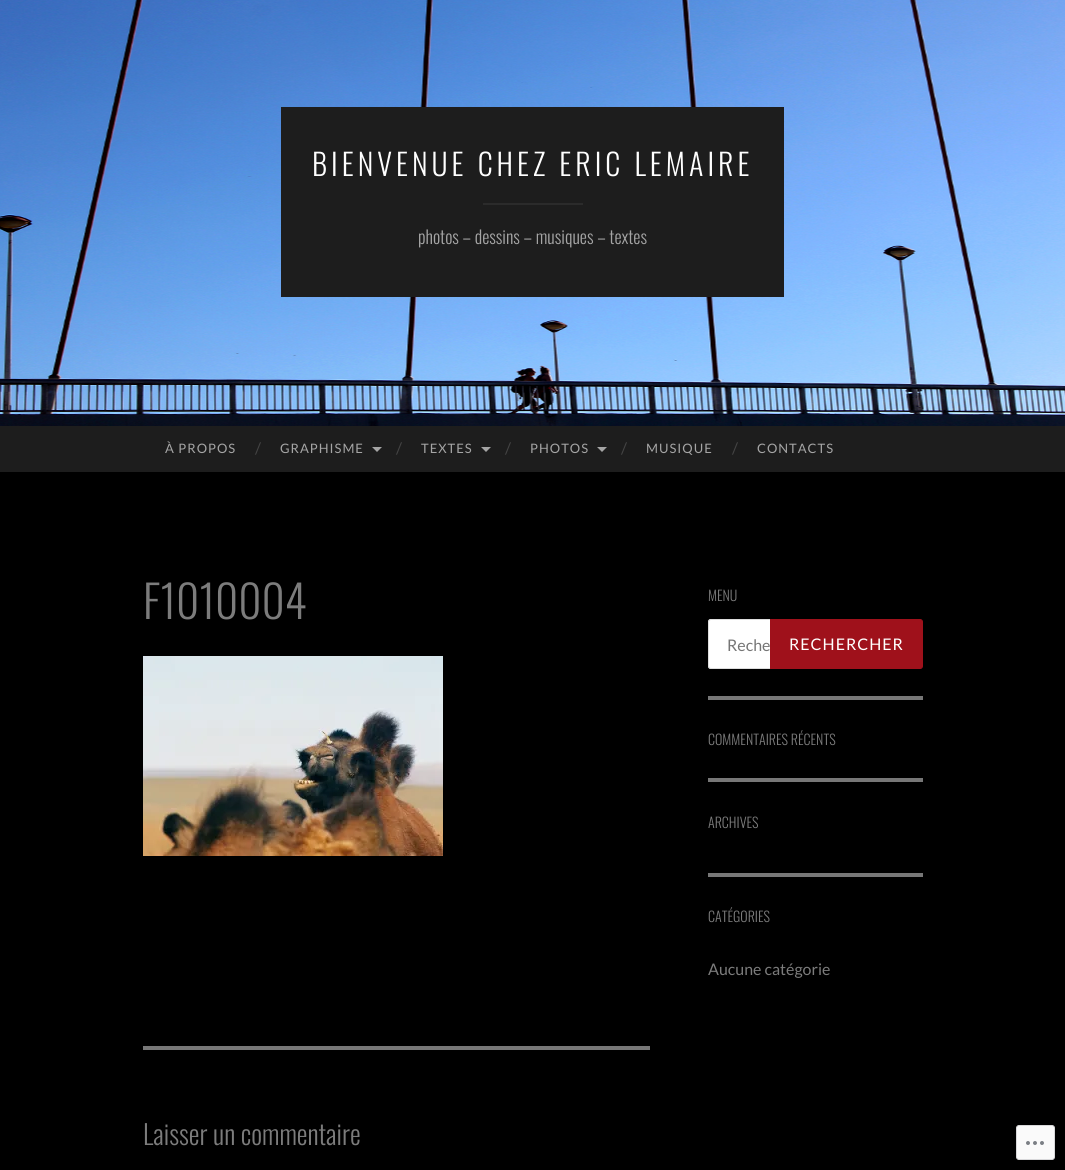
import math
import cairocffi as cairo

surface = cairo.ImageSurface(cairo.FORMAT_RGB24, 1065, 1170)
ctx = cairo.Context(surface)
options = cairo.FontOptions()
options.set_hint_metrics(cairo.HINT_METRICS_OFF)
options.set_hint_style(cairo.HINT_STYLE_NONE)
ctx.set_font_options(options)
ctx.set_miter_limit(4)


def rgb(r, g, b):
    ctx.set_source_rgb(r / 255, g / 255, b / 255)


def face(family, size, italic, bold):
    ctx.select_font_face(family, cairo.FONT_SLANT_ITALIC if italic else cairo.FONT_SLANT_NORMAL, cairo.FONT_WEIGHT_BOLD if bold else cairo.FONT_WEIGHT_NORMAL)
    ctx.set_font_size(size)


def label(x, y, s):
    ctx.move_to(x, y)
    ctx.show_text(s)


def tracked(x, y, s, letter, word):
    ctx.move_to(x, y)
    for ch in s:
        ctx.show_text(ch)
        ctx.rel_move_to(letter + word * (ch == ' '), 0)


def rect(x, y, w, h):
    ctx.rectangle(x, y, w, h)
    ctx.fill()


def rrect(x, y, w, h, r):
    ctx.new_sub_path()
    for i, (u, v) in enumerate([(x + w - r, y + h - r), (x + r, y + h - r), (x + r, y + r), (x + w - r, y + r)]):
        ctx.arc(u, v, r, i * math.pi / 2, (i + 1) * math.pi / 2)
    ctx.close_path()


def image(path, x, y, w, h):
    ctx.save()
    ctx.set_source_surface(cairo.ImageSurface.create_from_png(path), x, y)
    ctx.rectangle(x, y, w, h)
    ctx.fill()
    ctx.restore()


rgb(0, 0, 0)
ctx.paint()
image('image0.png', 0, 0, 1065, 426)
rgb(29, 29, 29)
rect(281, 107, 503, 190)
face('Oswald Light', 30, 0, 0)
rgb(255, 255, 255)
tracked(312, 176, 'BIENVENUE CHEZ ERIC LEMAIRE', 4, 0)
rgb(43, 43, 43)
rect(483, 203, 100, 2)
face('Oswald Light', 18, 0, 0)
rgb(165, 165, 165)
label(418, 244, 'photos – dessins – musiques – textes')
rgb(29, 29, 29)
rect(0, 426, 1065, 46)
face('Lato', 13, 0, 0)
rgb(165, 165, 165)
tracked(165, 453, 'À PROPOS', 1, 0)
face('Lato', 16, 0, 0)
rgb(68, 68, 68)
label(255, 454, '/')
face('Lato', 13, 0, 0)
rgb(165, 165, 165)
tracked(280, 453, 'GRAPHISME', 1, 0)
ctx.new_path()
ctx.move_to(372, 447)
ctx.line_to(382, 447)
ctx.line_to(377, 452)
ctx.close_path()
ctx.fill()
face('Lato', 16, 0, 0)
rgb(68, 68, 68)
label(396, 454, '/')
face('Lato', 13, 0, 0)
rgb(165, 165, 165)
tracked(421, 453, 'TEXTES', 1, 0)
ctx.new_path()
ctx.move_to(481, 447)
ctx.line_to(491, 447)
ctx.line_to(486, 452)
ctx.close_path()
ctx.fill()
face('Lato', 16, 0, 0)
rgb(68, 68, 68)
label(505, 454, '/')
face('Lato', 13, 0, 0)
rgb(165, 165, 165)
tracked(530, 453, 'PHOTOS', 1, 0)
ctx.new_path()
ctx.move_to(597, 447)
ctx.line_to(607, 447)
ctx.line_to(602, 452)
ctx.close_path()
ctx.fill()
face('Lato', 16, 0, 0)
rgb(68, 68, 68)
label(621, 454, '/')
face('Lato', 13, 0, 0)
rgb(165, 165, 165)
tracked(646, 453, 'MUSIQUE', 1, 0)
face('Lato', 16, 0, 0)
rgb(68, 68, 68)
label(732, 454, '/')
face('Lato', 13, 0, 0)
rgb(165, 165, 165)
tracked(757, 453, 'CONTACTS', 1, 0)
rgb(119, 119, 119)
rect(143, 1046, 507, 4)
face('Oswald Light', 45, 0, 0)
rgb(124, 124, 124)
label(143, 619, 'F1010004')
image('image1.png', 143, 656, 300, 200)
face('Oswald Light', 27, 0, 0)
label(143, 1145, 'Laisser un commentaire')
rgb(119, 119, 119)
rect(708, 696, 215, 4)
face('Oswald Light', 14, 0, 0)
rgb(124, 124, 124)
label(708, 601, 'MENU')
rgb(255, 255, 255)
ctx.new_path()
ctx.move_to(711, 619)
ctx.line_to(920, 619)
ctx.line_to(920, 669)
ctx.line_to(711, 669)
ctx.curve_to(709.5, 669, 708, 667.5, 708, 666)
ctx.line_to(708, 622)
ctx.curve_to(708, 620.5, 709.5, 619, 711, 619)
ctx.close_path()
ctx.fill()
rgb(221, 221, 221)
ctx.set_fill_rule(cairo.FILL_RULE_EVEN_ODD)
ctx.new_path()
ctx.move_to(711, 619)
ctx.line_to(920, 619)
ctx.line_to(920, 669)
ctx.line_to(711, 669)
ctx.curve_to(709, 669, 708, 668, 708, 666)
ctx.line_to(708, 622)
ctx.curve_to(708, 620, 709, 619, 711, 619)
ctx.close_path()
ctx.move_to(711, 620)
ctx.line_to(920, 620)
ctx.line_to(920, 668)
ctx.line_to(711, 668)
ctx.curve_to(710, 668, 709, 667, 709, 666)
ctx.line_to(709, 622)
ctx.curve_to(709, 621, 710, 620, 711, 620)
ctx.close_path()
ctx.fill()
face('Lato', 16, 0, 0)
rgb(117, 117, 117)
label(727, 651, 'Reche')
rgb(159, 17, 27)
ctx.new_path()
ctx.move_to(770.5, 619.5)
ctx.line_to(920, 619.5)
ctx.curve_to(921.5, 619.5, 922.5, 620.5, 922.5, 622)
ctx.line_to(922.5, 666)
ctx.curve_to(922.5, 667.5, 921.5, 668.5, 920, 668.5)
ctx.line_to(770.5, 668.5)
ctx.close_path()
ctx.fill_preserve()
ctx.set_line_width(1)
ctx.stroke()
rgb(255, 255, 255)
tracked(789, 650, 'RECHERCHER', 1, 0)
rgb(119, 119, 119)
rect(708, 778, 215, 4)
face('Oswald Light', 14, 0, 0)
rgb(124, 124, 124)
label(708, 745, 'COMMENTAIRES RÉCENTS')
rgb(119, 119, 119)
rect(708, 873, 215, 4)
rgb(124, 124, 124)
label(708, 828, 'ARCHIVES')
label(708, 922, 'CATÉGORIES')
face('Lato', 16, 0, 0)
label(708, 975, 'Aucune catégorie')
rgb(250, 250, 250)
rrect(1016.5, 1125.5, 38, 34, 2.5)
ctx.fill_preserve()
rgb(216, 216, 218)
ctx.stroke()
image('image2.png', 1026, 1141, 18, 4)
surface.write_to_png('render.png')
